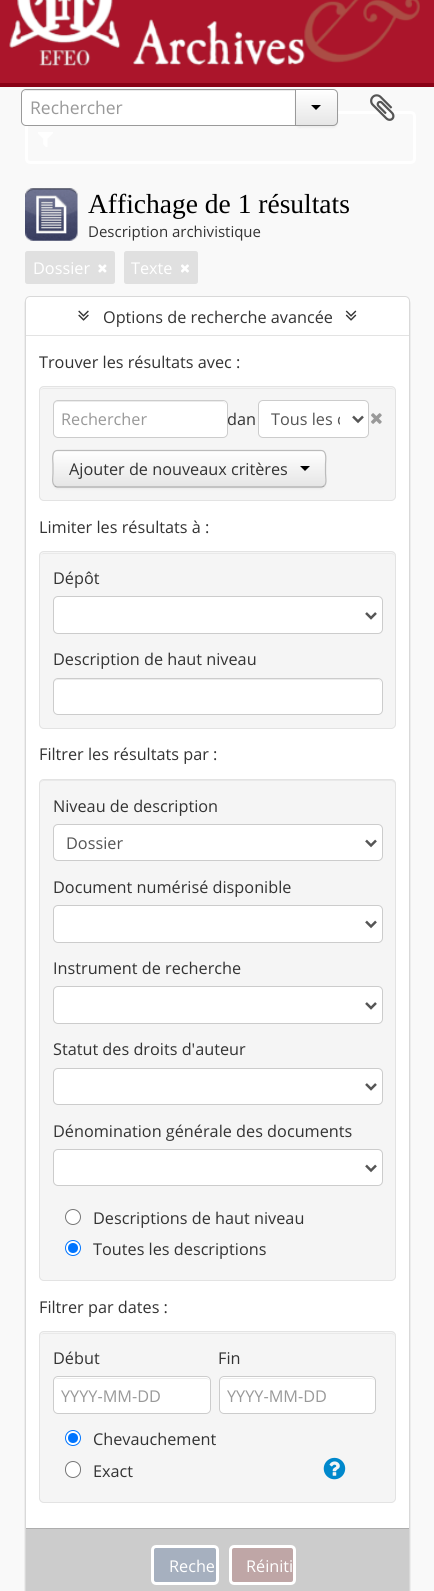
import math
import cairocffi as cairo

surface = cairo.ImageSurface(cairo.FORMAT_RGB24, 434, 1591)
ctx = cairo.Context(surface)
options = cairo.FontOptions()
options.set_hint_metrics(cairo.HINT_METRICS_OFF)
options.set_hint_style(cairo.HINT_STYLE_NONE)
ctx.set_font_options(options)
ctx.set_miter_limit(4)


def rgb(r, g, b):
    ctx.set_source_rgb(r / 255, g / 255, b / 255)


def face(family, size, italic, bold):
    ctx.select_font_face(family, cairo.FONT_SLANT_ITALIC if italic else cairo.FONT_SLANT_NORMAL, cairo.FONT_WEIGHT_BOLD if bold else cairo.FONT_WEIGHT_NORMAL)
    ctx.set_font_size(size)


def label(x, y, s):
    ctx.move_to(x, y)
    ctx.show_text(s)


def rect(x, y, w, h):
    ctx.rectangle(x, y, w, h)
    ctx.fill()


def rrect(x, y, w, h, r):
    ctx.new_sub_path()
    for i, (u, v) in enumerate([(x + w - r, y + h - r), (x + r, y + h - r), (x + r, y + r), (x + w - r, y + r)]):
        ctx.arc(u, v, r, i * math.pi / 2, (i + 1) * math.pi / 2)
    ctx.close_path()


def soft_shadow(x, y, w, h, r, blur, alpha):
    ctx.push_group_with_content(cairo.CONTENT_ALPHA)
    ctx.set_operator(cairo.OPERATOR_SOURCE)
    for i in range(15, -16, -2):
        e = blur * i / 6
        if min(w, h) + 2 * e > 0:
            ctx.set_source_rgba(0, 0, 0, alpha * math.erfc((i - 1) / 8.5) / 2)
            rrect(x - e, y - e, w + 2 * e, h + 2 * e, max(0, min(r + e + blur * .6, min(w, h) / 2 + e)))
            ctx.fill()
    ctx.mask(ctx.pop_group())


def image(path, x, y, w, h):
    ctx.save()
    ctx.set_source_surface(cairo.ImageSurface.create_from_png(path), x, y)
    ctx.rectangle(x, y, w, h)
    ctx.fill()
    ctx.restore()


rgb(249, 249, 249)
ctx.paint()
rgb(171, 21, 43)
rect(0, 0, 434, 83)
rgb(137, 2, 22)
rect(0, 83, 434, 4)
image('image0.png', 9, 0, 411, 66)
rrect(26.5, 112.5, 388, 50, 3.5)
rgb(255, 255, 255)
ctx.set_line_width(3)
ctx.stroke()
ctx.new_path()
ctx.move_to(26, 89)
ctx.line_to(296, 89)
ctx.line_to(296, 126)
ctx.line_to(26, 126)
ctx.curve_to(23, 126, 21, 124, 21, 121)
ctx.line_to(21, 94)
ctx.curve_to(21, 91, 23, 89, 26, 89)
ctx.close_path()
ctx.fill()
rgb(236, 236, 236)
ctx.new_path()
ctx.move_to(26, 91)
ctx.line_to(295, 91)
ctx.line_to(295, 90)
ctx.line_to(27, 90)
ctx.curve_to(26, 90, 24, 91, 24, 92)
ctx.close_path()
ctx.fill()
ctx.new_path()
ctx.move_to(26, 89.5)
ctx.line_to(295.5, 89.5)
ctx.line_to(295.5, 125.5)
ctx.line_to(26, 125.5)
ctx.curve_to(23.5, 125.5, 21.5, 123.5, 21.5, 121)
ctx.line_to(21.5, 94)
ctx.curve_to(21.5, 91.5, 23.5, 89.5, 26, 89.5)
ctx.close_path()
rgb(154, 154, 154)
ctx.set_line_width(1)
ctx.stroke()
face('Open Sans', 17.5, 0, 0)
rgb(153, 153, 153)
label(30, 114, 'Rechercher')
rgb(0, 0, 0)
soft_shadow(295, 90, 43, 38, 5, 1, 0.05)
ctx.save()
ctx.new_path()
ctx.move_to(295, 89)
ctx.line_to(333, 89)
ctx.curve_to(336, 89, 338, 91, 338, 94)
ctx.line_to(338, 121)
ctx.curve_to(338, 124, 336, 126, 333, 126)
ctx.line_to(295, 126)
ctx.close_path()
ctx.clip()
gradient = cairo.LinearGradient(316, 90, 316, 125)
gradient.add_color_stop_rgba(0, 1, 1, 1, 1)
gradient.add_color_stop_rgba(1, 0.902, 0.902, 0.902, 1)
ctx.set_source(gradient)
rect(296, 90, 42, 35)
ctx.restore()
ctx.new_path()
ctx.move_to(295.5, 89.5)
ctx.line_to(333, 89.5)
ctx.curve_to(335.5, 89.5, 337.5, 91.5, 337.5, 94)
ctx.line_to(337.5, 121)
ctx.curve_to(337.5, 123.5, 335.5, 125.5, 333, 125.5)
ctx.line_to(295.5, 125.5)
ctx.close_path()
rgb(154, 154, 154)
ctx.stroke()
rgb(0, 0, 0)
ctx.new_path()
ctx.move_to(311, 105)
ctx.line_to(321, 105)
ctx.line_to(316, 110)
ctx.close_path()
ctx.fill()
image('image1.png', 370, 94, 25, 27)
image('image2.png', 38, 132, 15, 15)
image('image3.png', 25, 188, 53, 53)
face('Liberation Serif', 27.5, 0, 0)
label(88, 213, 'Affichage de 1 résultats')
face('Open Sans', 15, 0, 0)
rgb(51, 51, 51)
label(88, 237, 'Description archivistique')
rgb(224, 224, 224)
rrect(25, 251, 90, 33, 2.5)
ctx.fill()
face('Open Sans', 16.25, 0, 0)
rgb(255, 255, 255)
label(33, 274, 'Dossier')
image('image4.png', 98, 264, 9, 9)
rgb(224, 224, 224)
rrect(124, 251, 74, 33, 2.5)
ctx.fill()
rgb(255, 255, 255)
label(131, 274, 'Texte')
image('image5.png', 181, 264, 8, 9)
rgb(0, 0, 0)
soft_shadow(25, 298, 385, 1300, 5, 0.5, 0.2)
rgb(255, 255, 255)
rrect(25.5, 296.5, 384, 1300, 4.5)
ctx.fill_preserve()
rgb(217, 217, 217)
ctx.stroke()
image('image6.png', 78, 310, 11, 11)
rgb(51, 51, 51)
label(103, 323, 'Options de recherche avancée')
image('image7.png', 345, 310, 12, 11)
rgb(227, 227, 227)
rect(26, 335, 383, 1)
rgb(51, 51, 51)
label(39, 368, 'Trouver les résultats avec :')
rgb(245, 245, 245)
rrect(39, 386, 357, 115, 5)
ctx.fill()
rgb(233, 233, 233)
ctx.new_path()
ctx.move_to(44, 389)
ctx.line_to(391, 389)
ctx.curve_to(393, 389, 395, 390, 395, 392)
ctx.curve_to(395, 390, 393, 388, 391, 388)
ctx.line_to(44, 388)
ctx.curve_to(42, 388, 40, 390, 40, 392)
ctx.curve_to(40, 390, 42, 389, 44, 389)
ctx.close_path()
ctx.fill()
rrect(39.5, 386.5, 356, 114, 4.5)
rgb(227, 227, 227)
ctx.stroke()
rgb(255, 255, 255)
rrect(53, 400, 175, 38, 5)
ctx.fill()
rgb(236, 236, 236)
ctx.new_path()
ctx.move_to(58, 402)
ctx.line_to(222, 402)
ctx.curve_to(225, 402, 226, 404, 226, 406)
ctx.line_to(226, 405)
ctx.curve_to(226, 403, 224, 401, 222, 401)
ctx.line_to(58, 401)
ctx.curve_to(56, 401, 54, 403, 54, 405)
ctx.line_to(54, 406)
ctx.curve_to(54, 404, 55, 402, 58, 402)
ctx.close_path()
ctx.fill()
rrect(53.5, 400.5, 174, 37, 4.5)
rgb(204, 204, 204)
ctx.stroke()
rgb(153, 153, 153)
label(61, 425, 'Rechercher')
rgb(51, 51, 51)
label(227, 425, 'dan')
rgb(255, 255, 255)
rrect(258.5, 400.5, 110, 37, 4.5)
ctx.fill_preserve()
rgb(204, 204, 204)
ctx.stroke()
ctx.new_path()
ctx.move_to(353, 416.5)
ctx.line_to(358, 421.5)
ctx.line_to(363, 416.5)
rgb(85, 85, 85)
ctx.set_line_width(2.5)
ctx.stroke()
ctx.save()
ctx.rectangle(271, 406, 69, 25)
ctx.clip()
label(271, 425, 'Tous les c')
ctx.restore()
image('image8.png', 371, 413, 11, 11)
rgb(0, 0, 0)
soft_shadow(53, 451, 273, 38, 5, 1, 0.05)
rgb(245, 245, 245)
rrect(53, 450, 273, 38, 5)
ctx.fill()
ctx.save()
rrect(53, 450, 273, 38, 5)
ctx.clip()
gradient = cairo.LinearGradient(189, 451, 189, 486)
gradient.add_color_stop_rgba(0, 1, 1, 1, 1)
gradient.add_color_stop_rgba(1, 0.902, 0.902, 0.902, 1)
ctx.set_source(gradient)
rect(53, 451, 273, 35)
ctx.restore()
ctx.new_path()
ctx.move_to(324.5, 485.5)
ctx.curve_to(323.5, 486.5, 322.5, 487, 321, 487)
ctx.line_to(57.5, 487)
ctx.curve_to(56.5, 487, 55, 486.5, 54.5, 485.5)
rgb(162, 162, 162)
ctx.set_line_width(1.2)
ctx.stroke()
ctx.new_path()
ctx.move_to(54.5, 485.5)
ctx.curve_to(51.5, 483, 53, 476.5, 53, 473.5)
ctx.line_to(53, 464)
ctx.curve_to(53, 461, 51, 450.5, 57.5, 450.5)
ctx.line_to(321, 450.5)
ctx.curve_to(327.5, 450.5, 325.5, 461, 325.5, 464)
ctx.line_to(325.5, 473.5)
ctx.curve_to(325.5, 476.5, 327, 483, 324.5, 485.5)
rgb(187, 187, 187)
ctx.stroke()
rgb(51, 51, 51)
label(69, 475, 'Ajouter de nouveaux critères')
rgb(0, 0, 0)
ctx.new_path()
ctx.move_to(300, 466)
ctx.line_to(310, 466)
ctx.line_to(305, 471)
ctx.close_path()
ctx.fill()
rgb(51, 51, 51)
label(39, 533, 'Limiter les résultats à :')
rgb(245, 245, 245)
rrect(39, 551, 357, 178, 5)
ctx.fill()
rgb(233, 233, 233)
ctx.new_path()
ctx.move_to(44, 554)
ctx.line_to(391, 554)
ctx.curve_to(393, 554, 395, 555, 395, 558)
ctx.curve_to(395, 555, 394, 553, 391, 553)
ctx.line_to(43, 553)
ctx.line_to(41, 555)
ctx.line_to(40, 558)
ctx.curve_to(40, 555, 42, 554, 44, 554)
ctx.close_path()
ctx.fill()
rrect(39.5, 551.5, 356, 177, 4.5)
rgb(227, 227, 227)
ctx.set_line_width(1)
ctx.stroke()
rgb(51, 51, 51)
label(53, 584, 'Dépôt')
rgb(255, 255, 255)
rrect(53.5, 596.5, 329, 37, 4.5)
ctx.fill_preserve()
rgb(204, 204, 204)
ctx.stroke()
ctx.new_path()
ctx.move_to(366, 613)
ctx.line_to(371, 618)
ctx.line_to(376, 613)
rgb(85, 85, 85)
ctx.set_line_width(2.5)
ctx.stroke()
rgb(51, 51, 51)
label(53, 665, 'Description de haut niveau')
rgb(255, 255, 255)
rrect(53, 678, 330, 37, 5)
ctx.fill()
rgb(236, 236, 236)
ctx.new_path()
ctx.move_to(58, 680)
ctx.line_to(378, 680)
ctx.curve_to(380, 680, 381, 682, 381, 684)
ctx.line_to(381, 683)
ctx.curve_to(381, 681, 379, 679, 377, 679)
ctx.line_to(58, 679)
ctx.curve_to(56, 679, 54, 681, 54, 683)
ctx.line_to(54, 684)
ctx.curve_to(54, 682, 55, 680, 58, 680)
ctx.close_path()
ctx.fill()
rrect(53.5, 678.5, 329, 36, 4.5)
rgb(204, 204, 204)
ctx.set_line_width(1)
ctx.stroke()
rgb(51, 51, 51)
label(39, 760, 'Filtrer les résultats par :')
rgb(245, 245, 245)
rrect(39, 779, 357, 502, 5)
ctx.fill()
rgb(233, 233, 233)
ctx.new_path()
ctx.move_to(44, 781)
ctx.line_to(391, 781)
ctx.curve_to(393, 781, 395, 783, 395, 785)
ctx.curve_to(395, 782, 394, 780, 391, 780)
ctx.line_to(43, 780)
ctx.line_to(41, 782)
ctx.line_to(40, 785)
ctx.curve_to(40, 783, 42, 781, 44, 781)
ctx.close_path()
ctx.fill()
rrect(39.5, 779.5, 356, 501, 4.5)
rgb(227, 227, 227)
ctx.stroke()
rgb(51, 51, 51)
label(53, 812, 'Niveau de description')
rgb(255, 255, 255)
rrect(53.5, 824.5, 329, 36, 4.5)
ctx.fill_preserve()
rgb(204, 204, 204)
ctx.stroke()
ctx.new_path()
ctx.move_to(366, 840.5)
ctx.line_to(371, 845.5)
ctx.line_to(376, 840.5)
rgb(85, 85, 85)
ctx.set_line_width(2.5)
ctx.stroke()
label(66, 849, 'Dossier')
rgb(51, 51, 51)
label(53, 893, 'Document numérisé disponible')
rgb(255, 255, 255)
rrect(53.5, 905.5, 329, 37, 4.5)
ctx.fill_preserve()
rgb(204, 204, 204)
ctx.set_line_width(1)
ctx.stroke()
ctx.new_path()
ctx.move_to(366, 921.5)
ctx.line_to(371, 926.5)
ctx.line_to(376, 921.5)
rgb(85, 85, 85)
ctx.set_line_width(2.5)
ctx.stroke()
rgb(51, 51, 51)
label(53, 974, 'Instrument de recherche')
rgb(255, 255, 255)
rrect(53.5, 986.5, 329, 37, 4.5)
ctx.fill_preserve()
rgb(204, 204, 204)
ctx.set_line_width(1)
ctx.stroke()
ctx.new_path()
ctx.move_to(366, 1003)
ctx.line_to(371, 1008)
ctx.line_to(376, 1003)
rgb(85, 85, 85)
ctx.set_line_width(2.5)
ctx.stroke()
rgb(51, 51, 51)
label(53, 1055, 'Statut des droits d\'auteur')
rgb(255, 255, 255)
rrect(53.5, 1068.5, 329, 36, 4.5)
ctx.fill_preserve()
rgb(204, 204, 204)
ctx.set_line_width(1)
ctx.stroke()
ctx.new_path()
ctx.move_to(366, 1084)
ctx.line_to(371, 1089)
ctx.line_to(376, 1084)
rgb(85, 85, 85)
ctx.set_line_width(2.5)
ctx.stroke()
rgb(51, 51, 51)
label(53, 1137, 'Dénomination générale des documents')
rgb(255, 255, 255)
rrect(53.5, 1149.5, 329, 36, 4.5)
ctx.fill_preserve()
rgb(204, 204, 204)
ctx.set_line_width(1)
ctx.stroke()
ctx.new_path()
ctx.move_to(366, 1165.5)
ctx.line_to(371, 1170.5)
ctx.line_to(376, 1165.5)
rgb(85, 85, 85)
ctx.set_line_width(2.5)
ctx.stroke()
rgb(255, 255, 255)
ctx.arc(73, 1217, 7.5, 0, 2 * math.pi)
ctx.fill_preserve()
rgb(118, 118, 118)
ctx.set_line_width(1)
ctx.stroke()
rgb(51, 51, 51)
label(93, 1224, 'Descriptions de haut niveau')
rgb(255, 255, 255)
ctx.new_path()
ctx.arc(73, 1248, 7.5, 0, 2 * math.pi)
ctx.fill_preserve()
rgb(0, 117, 255)
ctx.stroke()
ctx.arc(73, 1248, 5, 0, 2 * math.pi)
ctx.fill()
rgb(51, 51, 51)
label(93, 1255, 'Toutes les descriptions')
label(39, 1313, 'Filtrer par dates :')
rgb(245, 245, 245)
rrect(39, 1331, 357, 172, 5)
ctx.fill()
rgb(233, 233, 233)
ctx.new_path()
ctx.move_to(44, 1334)
ctx.line_to(391, 1334)
ctx.curve_to(393, 1334, 395, 1335, 395, 1338)
ctx.curve_to(395, 1335, 394, 1333, 391, 1333)
ctx.line_to(43, 1333)
ctx.line_to(41, 1335)
ctx.line_to(40, 1338)
ctx.curve_to(40, 1335, 42, 1334, 44, 1334)
ctx.close_path()
ctx.fill()
rrect(39.5, 1331.5, 356, 171, 4.5)
rgb(227, 227, 227)
ctx.stroke()
rgb(51, 51, 51)
label(53, 1364, 'Début')
rgb(255, 255, 255)
rrect(53, 1376, 158, 38, 5)
ctx.fill()
rgb(236, 236, 236)
ctx.new_path()
ctx.move_to(58, 1379)
ctx.line_to(206, 1379)
ctx.curve_to(208, 1379, 210, 1380, 210, 1382)
ctx.curve_to(210, 1380, 208, 1378, 206, 1378)
ctx.line_to(58, 1378)
ctx.curve_to(56, 1378, 55, 1379, 54, 1380)
ctx.curve_to(55, 1379, 56, 1379, 58, 1379)
ctx.close_path()
ctx.fill()
rrect(53.5, 1376.5, 157, 37, 4.5)
rgb(204, 204, 204)
ctx.stroke()
rgb(153, 153, 153)
label(61, 1402, 'YYYY-MM-DD')
rgb(51, 51, 51)
label(218, 1364, 'Fin')
rgb(255, 255, 255)
rrect(219, 1376, 157, 38, 5)
ctx.fill()
rgb(236, 236, 236)
ctx.new_path()
ctx.move_to(224, 1379)
ctx.line_to(371, 1379)
ctx.curve_to(373, 1379, 375, 1380, 375, 1382)
ctx.line_to(374, 1379)
ctx.line_to(371, 1378)
ctx.line_to(224, 1378)
ctx.curve_to(222, 1378, 220, 1380, 220, 1382)
ctx.curve_to(220, 1380, 222, 1379, 224, 1379)
ctx.close_path()
ctx.fill()
rrect(219.5, 1376.5, 156, 37, 4.5)
rgb(204, 204, 204)
ctx.stroke()
rgb(153, 153, 153)
label(227, 1402, 'YYYY-MM-DD')
rgb(255, 255, 255)
ctx.new_path()
ctx.arc(73, 1438, 7.5, 0, 2 * math.pi)
ctx.fill_preserve()
rgb(0, 117, 255)
ctx.stroke()
ctx.arc(73, 1438, 5, 0, 2 * math.pi)
ctx.fill()
rgb(51, 51, 51)
label(93, 1445, 'Chevauchement')
rgb(255, 255, 255)
rrect(65.5, 1461.5, 15, 16, 7.5)
ctx.fill_preserve()
rgb(118, 118, 118)
ctx.stroke()
rgb(51, 51, 51)
label(93, 1477, 'Exact')
image('image9.png', 323, 1457, 23, 23)
rgb(204, 204, 204)
rect(26, 1529, 383, 62)
rgb(173, 173, 173)
rect(26, 1528, 383, 1)
rgb(166, 176, 191)
rrect(152.5, 1546.5, 65, 37, 3.5)
ctx.fill_preserve()
rgb(255, 255, 255)
ctx.set_line_width(3)
ctx.stroke()
label(169, 1572, 'Reche')
rgb(191, 166, 166)
rrect(230.5, 1546.5, 64, 37, 3.5)
ctx.fill_preserve()
rgb(255, 255, 255)
ctx.stroke()
label(246, 1572, 'Réiniti')
surface.write_to_png('render.png')
